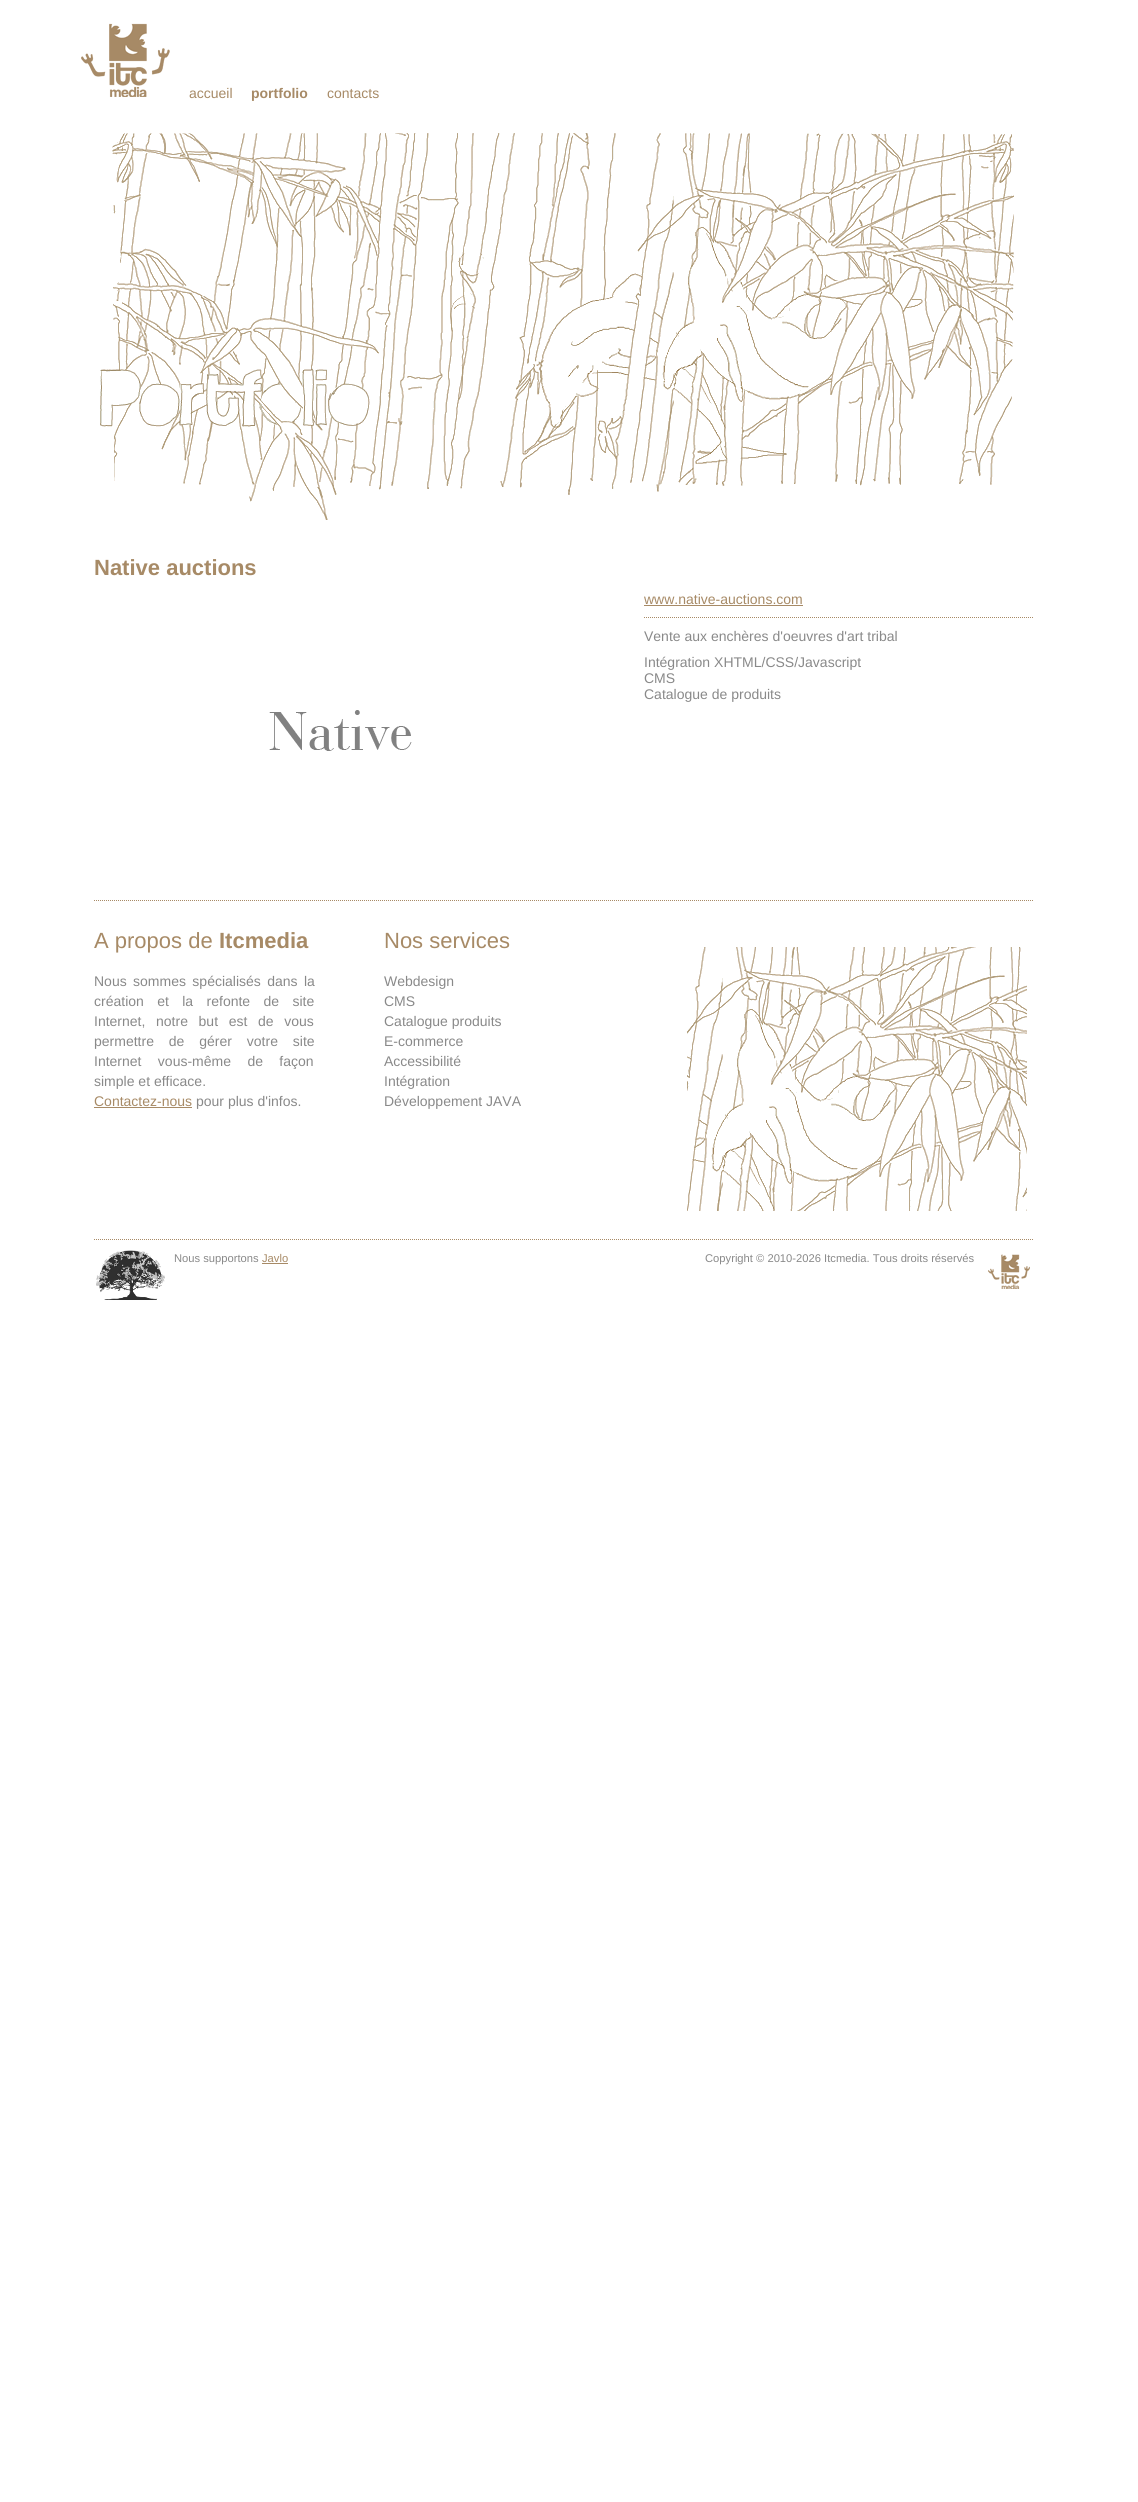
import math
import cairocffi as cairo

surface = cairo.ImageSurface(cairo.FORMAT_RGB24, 1138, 2502)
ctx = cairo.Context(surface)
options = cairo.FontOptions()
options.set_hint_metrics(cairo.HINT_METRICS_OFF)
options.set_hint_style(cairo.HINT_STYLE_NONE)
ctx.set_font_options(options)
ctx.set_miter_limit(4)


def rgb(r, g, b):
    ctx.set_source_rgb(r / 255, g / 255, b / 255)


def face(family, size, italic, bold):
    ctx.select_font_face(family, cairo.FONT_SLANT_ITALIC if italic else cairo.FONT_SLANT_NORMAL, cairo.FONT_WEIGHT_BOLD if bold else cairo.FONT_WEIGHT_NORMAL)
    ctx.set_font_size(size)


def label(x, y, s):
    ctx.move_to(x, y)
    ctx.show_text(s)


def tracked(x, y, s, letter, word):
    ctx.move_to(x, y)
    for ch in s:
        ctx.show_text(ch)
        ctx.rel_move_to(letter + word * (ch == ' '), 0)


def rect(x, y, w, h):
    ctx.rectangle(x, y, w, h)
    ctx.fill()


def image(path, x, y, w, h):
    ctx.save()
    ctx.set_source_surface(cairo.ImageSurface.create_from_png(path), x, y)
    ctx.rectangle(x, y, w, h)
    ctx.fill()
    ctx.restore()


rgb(255, 255, 255)
ctx.paint()
image('image0.png', 100, 133, 914, 387)
image('image1.png', 81, 23, 89, 74)
face('Liberation Sans', 14, 0, 0)
rgb(167, 138, 102)
label(189, 98, 'accueil')
face('Liberation Sans', 14, 0, 1)
label(251, 98, 'portfolio')
face('Liberation Sans', 14, 0, 0)
label(327, 98, 'contacts')
face('Liberation Sans', 22, 0, 1)
label(94, 575, 'Native auctions')
ctx.new_path()
ctx.move_to(644, 617.5)
ctx.line_to(1034, 617.5)
ctx.set_line_width(1)
ctx.set_dash([1, 1])
ctx.stroke()
face('Liberation Sans', 14, 0, 0)
label(644, 604, 'www.native-auctions.com')
rect(644, 605, 159, 1)
rgb(137, 137, 137)
label(644, 641, 'Vente aux enchères d\'oeuvres d\'art tribal')
label(644, 667, 'Intégration XHTML/CSS/Javascript')
label(644, 683, 'CMS')
label(644, 699, 'Catalogue de produits')
image('image2.png', 269, 710, 143, 41)
image('image3.png', 687, 947, 340, 264)
ctx.new_path()
ctx.move_to(94, 900.5)
ctx.line_to(1034, 900.5)
rgb(167, 138, 102)
ctx.stroke()
face('Liberation Sans', 22, 0, 0)
label(94, 948, 'A propos de')
face('Liberation Sans', 22, 0, 1)
label(219, 948, 'Itcmedia')
face('Liberation Sans', 14, 0, 0)
rgb(137, 137, 137)
tracked(94, 986, 'Nous sommes spécialisés dans la', 0, 2.5)
tracked(94, 1006, 'création et la refonte de site', 0, 9.5)
tracked(94, 1026, 'Internet, notre but est de vous', 0, 6.75)
tracked(94, 1046, 'permettre de gérer votre site', 0, 11)
tracked(94, 1066, 'Internet vous-même de façon', 0, 12.5)
label(94, 1086, 'simple et efficace.')
rgb(167, 138, 102)
label(94, 1106, 'Contactez-nous')
rect(94, 1107, 98, 1)
rgb(137, 137, 137)
label(196, 1106, 'pour plus d\'infos.')
face('Liberation Sans', 22, 0, 0)
rgb(167, 138, 102)
label(384, 948, 'Nos services')
face('Liberation Sans', 14, 0, 0)
rgb(137, 137, 137)
label(384, 986, 'Webdesign')
label(384, 1006, 'CMS')
label(384, 1026, 'Catalogue produits')
label(384, 1046, 'E-commerce')
label(384, 1066, 'Accessibilité')
label(384, 1086, 'Intégration')
label(384, 1106, 'Développement JAVA')
image('image4.png', 988, 1254, 42, 35)
ctx.new_path()
ctx.move_to(94, 1239.5)
ctx.line_to(1034, 1239.5)
rgb(167, 138, 102)
ctx.stroke()
image('image5.png', 96, 1250, 69, 50)
face('Liberation Sans', 11.2, 0, 0)
rgb(137, 137, 137)
label(174, 1262, 'Nous supportons')
rgb(167, 138, 102)
label(262, 1262, 'Javlo')
rect(262, 1263, 26, 1)
rgb(137, 137, 137)
label(705, 1262, 'Copyright © 2010-2026 Itcmedia. Tous droits réservés')
surface.write_to_png('render.png')
